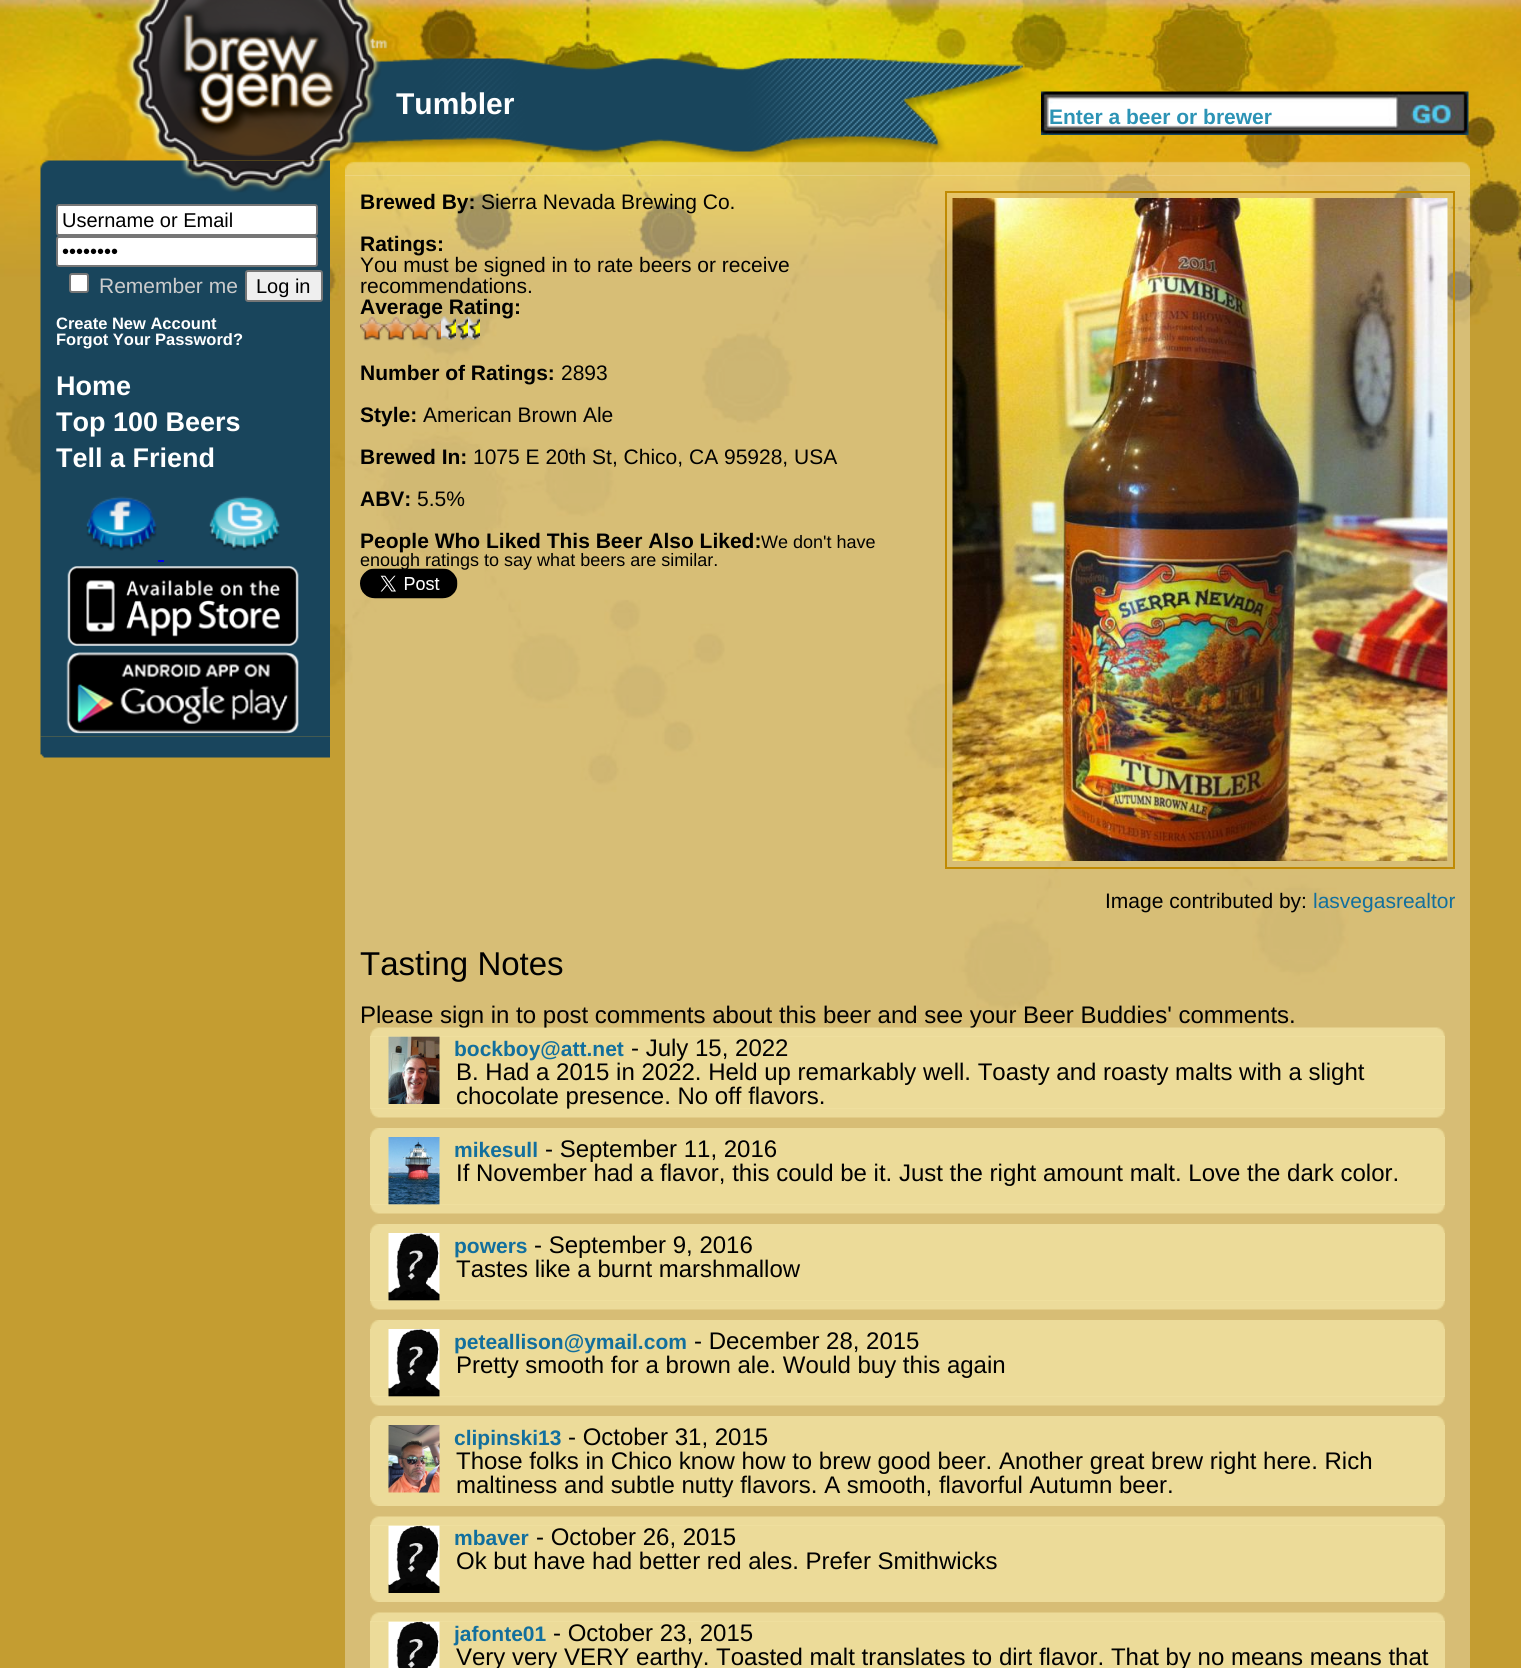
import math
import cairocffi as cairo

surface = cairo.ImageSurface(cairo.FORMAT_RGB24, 1521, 1668)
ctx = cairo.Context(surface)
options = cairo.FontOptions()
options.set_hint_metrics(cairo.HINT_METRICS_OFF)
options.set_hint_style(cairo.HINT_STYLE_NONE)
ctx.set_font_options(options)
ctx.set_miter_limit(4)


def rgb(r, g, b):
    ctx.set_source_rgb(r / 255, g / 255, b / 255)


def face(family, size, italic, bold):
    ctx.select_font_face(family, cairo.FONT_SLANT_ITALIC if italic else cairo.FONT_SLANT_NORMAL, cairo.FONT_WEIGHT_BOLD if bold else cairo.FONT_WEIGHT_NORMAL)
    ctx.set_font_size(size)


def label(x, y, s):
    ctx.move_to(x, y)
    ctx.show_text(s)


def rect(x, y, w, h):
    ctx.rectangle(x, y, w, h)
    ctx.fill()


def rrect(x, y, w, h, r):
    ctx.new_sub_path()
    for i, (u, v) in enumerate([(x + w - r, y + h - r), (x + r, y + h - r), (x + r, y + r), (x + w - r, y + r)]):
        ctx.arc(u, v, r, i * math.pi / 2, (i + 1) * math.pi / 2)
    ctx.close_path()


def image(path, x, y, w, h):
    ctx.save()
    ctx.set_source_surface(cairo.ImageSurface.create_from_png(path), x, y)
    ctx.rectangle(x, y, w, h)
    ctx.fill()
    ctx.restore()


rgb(196, 157, 49)
ctx.paint()
image('image0.png', 0, 0, 1521, 1010)
image('image1.png', 127, 0, 902, 161)
face('Liberation Sans', 30, 0, 1)
rgb(255, 255, 255)
label(396, 114, 'Tumbler')
image('image2.png', 1041, 91, 428, 44)
face('Liberation Sans', 21, 0, 1)
rgb(44, 147, 181)
label(1049, 124, 'Enter a beer or brewer')
image('image3.png', 40, 160, 290, 577)
rgb(255, 255, 255)
rrect(57, 205, 260, 30, 2)
ctx.fill_preserve()
rgb(118, 118, 118)
ctx.stroke()
face('Liberation Sans', 20, 0, 0)
rgb(0, 0, 0)
label(62, 227, 'Username or Email')
rgb(255, 255, 255)
rrect(57, 237, 260, 29, 2)
ctx.fill_preserve()
rgb(118, 118, 118)
ctx.stroke()
rgb(0, 0, 0)
label(62, 258, '••••••••')
rgb(255, 255, 255)
rrect(70, 274, 18, 18, 2)
ctx.fill_preserve()
rgb(118, 118, 118)
ctx.stroke()
face('Liberation Sans', 21, 0, 0)
rgb(204, 204, 204)
label(99, 293, 'Remember me')
rgb(239, 239, 239)
rrect(246, 271, 76, 30, 2)
ctx.fill_preserve()
rgb(118, 118, 118)
ctx.stroke()
face('Liberation Sans', 20, 0, 0)
rgb(0, 0, 0)
label(256, 293, 'Log in')
face('Liberation Sans', 16.5, 0, 1)
rgb(255, 255, 255)
label(56, 329, 'Create New Account')
label(56, 345, 'Forgot Your Password?')
face('Liberation Sans', 27, 0, 1)
label(56, 395, 'Home')
label(56, 431, 'Top 100 Beers')
label(56, 467, 'Tell a Friend')
image('image4.png', 86, 496, 71, 55)
image('image5.png', 209, 496, 71, 55)
rgb(0, 0, 238)
rect(158, 560, 6, 2)
image('image6.png', 67, 566, 232, 80)
image('image7.png', 66, 652, 233, 82)
image('image8.png', 40, 736, 290, 22)
ctx.set_source_rgba(1, 1, 1, 0.33)
rect(345, 175, 1125, 1493)
image('image9.png', 345, 161, 1125, 15)
face('Liberation Sans', 21, 0, 1)
rgb(0, 0, 0)
label(360, 209, 'Brewed By:')
face('Liberation Sans', 21, 0, 0)
label(481, 209, 'Sierra Nevada Brewing Co.')
face('Liberation Sans', 21, 0, 1)
label(360, 251, 'Ratings:')
face('Liberation Sans', 21, 0, 0)
label(360, 272, 'You must be signed in to rate beers or receive')
label(360, 293, 'recommendations.')
face('Liberation Sans', 21, 0, 1)
label(360, 314, 'Average Rating:')
image('image10.png', 360, 316, 12, 25)
image('image11.png', 360, 316, 12, 25)
image('image12.png', 372, 316, 12, 25)
image('image13.png', 372, 316, 12, 25)
image('image10.png', 384, 316, 12, 25)
image('image11.png', 384, 316, 12, 25)
image('image14.png', 396, 316, 12, 25)
image('image15.png', 396, 316, 12, 25)
image('image16.png', 408, 316, 12, 25)
image('image17.png', 408, 316, 12, 25)
image('image18.png', 420, 316, 12, 25)
image('image19.png', 420, 316, 12, 25)
image('image20.png', 432, 316, 12, 25)
image('image21.png', 432, 320, 9, 21)
image('image22.png', 444, 316, 9, 25)
image('image23.png', 445, 317, 11, 23)
image('image24.png', 456, 316, 12, 25)
image('image25.png', 456, 317, 12, 23)
image('image26.png', 468, 316, 9, 25)
image('image27.png', 469, 317, 11, 23)
label(360, 380, 'Number of Ratings:')
face('Liberation Sans', 21, 0, 0)
label(561, 380, '2893')
face('Liberation Sans', 21, 0, 1)
label(360, 422, 'Style:')
face('Liberation Sans', 21, 0, 0)
label(423, 422, 'American Brown Ale')
face('Liberation Sans', 21, 0, 1)
label(360, 464, 'Brewed In:')
face('Liberation Sans', 21, 0, 0)
label(473, 464, '1075 E 20th St, Chico, CA 95928, USA')
face('Liberation Sans', 21, 0, 1)
label(360, 506, 'ABV:')
face('Liberation Sans', 21, 0, 0)
label(417, 506, '5.5%')
face('Liberation Sans', 21, 0, 1)
label(360, 548, 'People Who Liked This Beer Also Liked:')
face('Liberation Sans', 18, 0, 0)
label(761, 548, 'We don\'t have')
label(360, 566, 'enough ratings to say what beers are similar.')
image('image28.png', 360, 568, 98, 31)
ctx.rectangle(946, 192, 508, 676)
rgb(192, 138, 2)
ctx.stroke()
image('image29.png', 952, 198, 496, 663)
face('Liberation Sans', 21, 0, 0)
rgb(0, 0, 0)
label(1105, 908, 'Image contributed by:')
rgb(18, 111, 157)
label(1313, 908, 'lasvegasrealtor')
face('Liberation Sans', 33, 0, 0)
rgb(0, 0, 0)
label(360, 975, 'Tasting Notes')
face('Liberation Sans', 24, 0, 0)
label(360, 1023, 'Please sign in to post comments about this beer and see your Beer Buddies\' comments.')
rgb(236, 219, 153)
rect(370, 1036, 1075, 73)
image('image31.png', 388, 1036, 52, 68)
image('image30.png', 370, 1027, 1075, 10)
face('Liberation Sans', 21, 0, 1)
rgb(18, 111, 157)
label(454, 1056, 'bockboy@att.net')
face('Liberation Sans', 24, 0, 0)
rgb(0, 0, 0)
label(631, 1056, '- July 15, 2022')
label(456, 1080, 'B. Had a 2015 in 2022. Held up remarkably well. Toasty and roasty malts with a slight')
label(456, 1104, 'chocolate presence. No off flavors.')
image('image32.png', 370, 1108, 1075, 10)
image('image33.png', 370, 1128, 1075, 9)
rgb(236, 219, 153)
rect(370, 1137, 1075, 68)
image('image34.png', 388, 1137, 52, 68)
face('Liberation Sans', 21, 0, 1)
rgb(18, 111, 157)
label(454, 1157, 'mikesull')
face('Liberation Sans', 24, 0, 0)
rgb(0, 0, 0)
label(545, 1157, '- September 11, 2016')
label(456, 1181, 'If November had a flavor, this could be it. Just the right amount malt. Love the dark color.')
image('image35.png', 370, 1204, 1075, 10)
image('image33.png', 370, 1224, 1075, 9)
rgb(236, 219, 153)
rect(370, 1233, 1075, 68)
image('image36.png', 388, 1233, 52, 68)
face('Liberation Sans', 21, 0, 1)
rgb(18, 111, 157)
label(454, 1253, 'powers')
face('Liberation Sans', 24, 0, 0)
rgb(0, 0, 0)
label(534, 1253, '- September 9, 2016')
label(456, 1277, 'Tastes like a burnt marshmallow')
image('image37.png', 370, 1300, 1075, 10)
image('image33.png', 370, 1320, 1075, 9)
rgb(236, 219, 153)
rect(370, 1329, 1075, 68)
image('image36.png', 388, 1329, 52, 68)
face('Liberation Sans', 21, 0, 1)
rgb(18, 111, 157)
label(454, 1349, 'peteallison@ymail.com')
face('Liberation Sans', 24, 0, 0)
rgb(0, 0, 0)
label(694, 1349, '- December 28, 2015')
label(456, 1373, 'Pretty smooth for a brown ale. Would buy this again')
image('image37.png', 370, 1396, 1075, 10)
image('image33.png', 370, 1416, 1075, 9)
rgb(236, 219, 153)
rect(370, 1425, 1075, 72)
image('image38.png', 388, 1425, 52, 68)
face('Liberation Sans', 21, 0, 1)
rgb(18, 111, 157)
label(454, 1445, 'clipinski13')
face('Liberation Sans', 24, 0, 0)
rgb(0, 0, 0)
label(568, 1445, '- October 31, 2015')
label(456, 1469, 'Those folks in Chico know how to brew good beer. Another great brew right here. Rich')
label(456, 1493, 'maltiness and subtle nutty flavors. A smooth, flavorful Autumn beer.')
image('image39.png', 370, 1497, 1075, 9)
rgb(236, 219, 153)
rect(370, 1525, 1075, 68)
image('image41.png', 388, 1525, 52, 68)
image('image40.png', 370, 1516, 1075, 10)
face('Liberation Sans', 21, 0, 1)
rgb(18, 111, 157)
label(454, 1545, 'mbaver')
face('Liberation Sans', 24, 0, 0)
rgb(0, 0, 0)
label(536, 1545, '- October 26, 2015')
label(456, 1569, 'Ok but have had better red ales. Prefer Smithwicks')
image('image42.png', 370, 1593, 1075, 9)
rgb(236, 219, 153)
rect(370, 1621, 1075, 47)
image('image43.png', 388, 1621, 52, 47)
image('image40.png', 370, 1612, 1075, 10)
face('Liberation Sans', 21, 0, 1)
rgb(18, 111, 157)
label(454, 1641, 'jafonte01')
face('Liberation Sans', 24, 0, 0)
rgb(0, 0, 0)
label(553, 1641, '- October 23, 2015')
label(456, 1665, 'Very very VERY earthy. Toasted malt translates to dirt flavor. That by no means means that')
surface.write_to_png('render.png')
